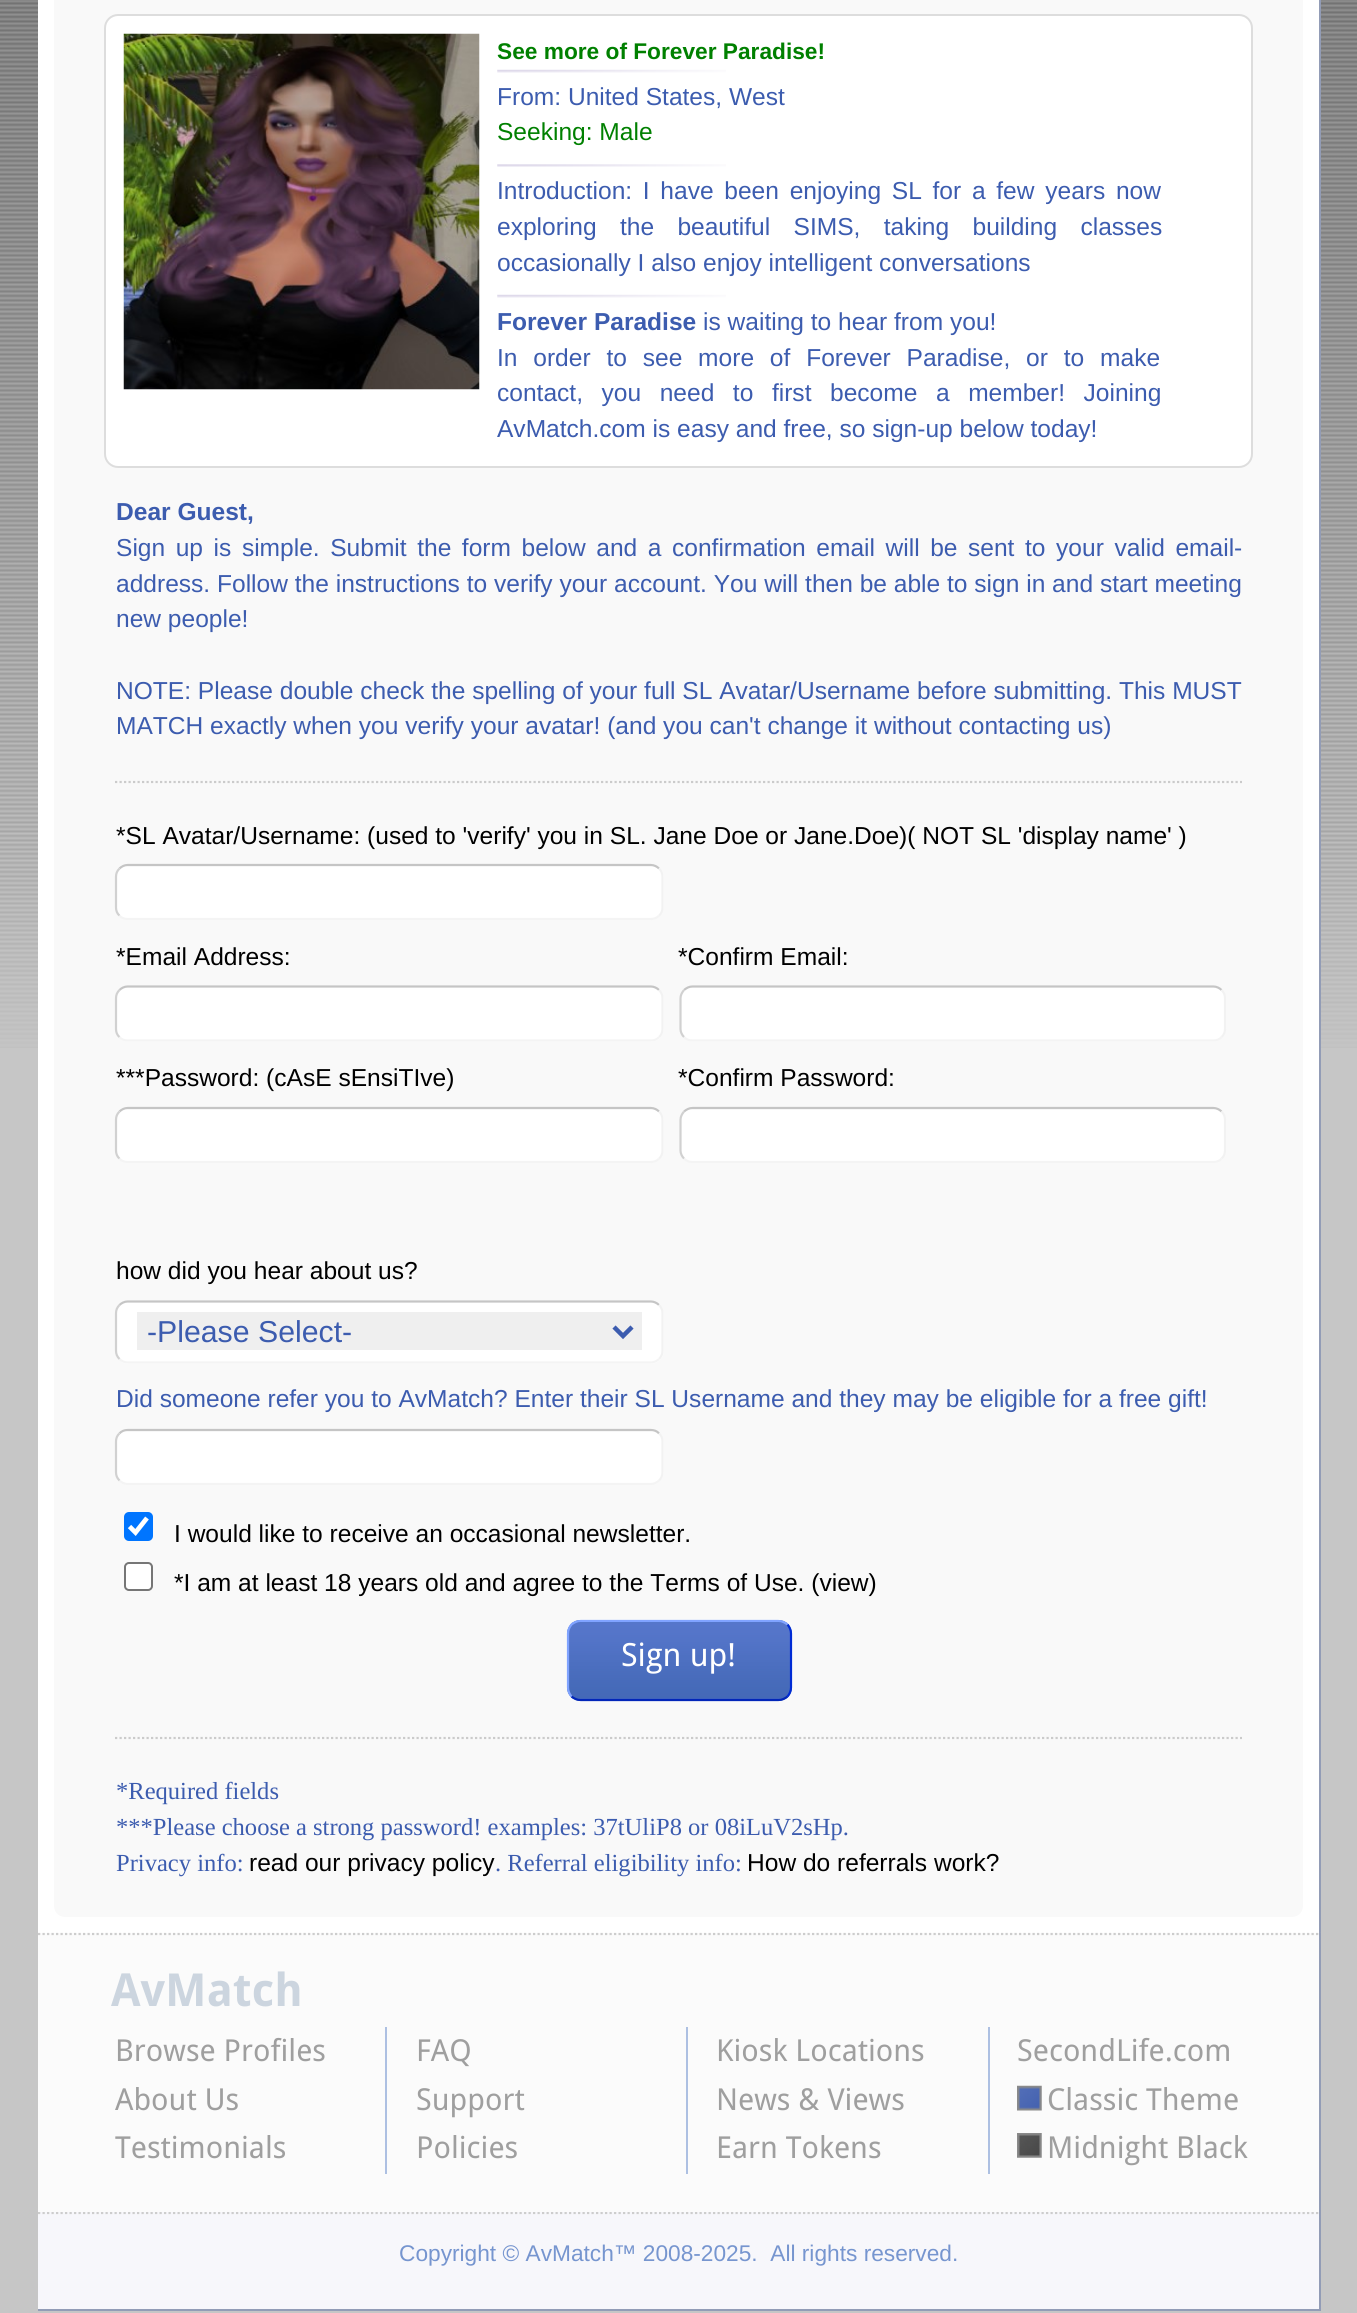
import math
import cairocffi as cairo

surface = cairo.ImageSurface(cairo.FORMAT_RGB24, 1357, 2313)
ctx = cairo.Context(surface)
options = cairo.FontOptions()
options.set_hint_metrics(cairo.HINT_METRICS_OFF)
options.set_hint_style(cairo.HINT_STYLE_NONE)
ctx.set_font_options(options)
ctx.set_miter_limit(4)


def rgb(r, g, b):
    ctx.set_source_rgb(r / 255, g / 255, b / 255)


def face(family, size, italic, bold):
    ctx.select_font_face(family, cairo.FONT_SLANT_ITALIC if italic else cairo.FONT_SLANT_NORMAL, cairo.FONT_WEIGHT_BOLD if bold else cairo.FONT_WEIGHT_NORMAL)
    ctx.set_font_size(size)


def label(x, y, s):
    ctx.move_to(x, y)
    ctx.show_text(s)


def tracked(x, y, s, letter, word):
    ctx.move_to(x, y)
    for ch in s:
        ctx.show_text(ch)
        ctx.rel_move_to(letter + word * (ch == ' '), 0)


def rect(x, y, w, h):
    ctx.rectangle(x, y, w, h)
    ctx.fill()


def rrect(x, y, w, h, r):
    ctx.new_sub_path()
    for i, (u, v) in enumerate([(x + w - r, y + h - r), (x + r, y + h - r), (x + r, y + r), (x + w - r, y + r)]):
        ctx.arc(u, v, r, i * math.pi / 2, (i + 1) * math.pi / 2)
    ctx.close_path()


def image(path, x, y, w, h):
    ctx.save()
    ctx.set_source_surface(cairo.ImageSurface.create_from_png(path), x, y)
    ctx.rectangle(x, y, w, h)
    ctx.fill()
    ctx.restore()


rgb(198, 198, 198)
ctx.paint()
image('image0.png', 0, 0, 1357, 1048)
rgb(255, 255, 255)
rect(38, 0, 1281, 1933)
rgb(146, 156, 182)
rect(1319, 0, 2, 1933)
rgb(249, 249, 249)
rrect(54, -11, 1249, 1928, 11)
ctx.fill()
rgb(255, 255, 255)
rrect(105, 15, 1147, 452, 13)
ctx.fill_preserve()
rgb(221, 221, 221)
ctx.stroke()
image('image1.png', 123, 33, 357, 357)
face('Liberation Sans', 22.7, 0, 1)
rgb(0, 128, 0)
label(497, 59, 'See more of Forever Paradise!')
image('image2.png', 497, 69, 229, 4)
face('Liberation Sans', 24.55, 0, 0)
rgb(60, 92, 175)
label(497, 105, 'From: United States, West')
rgb(0, 128, 0)
label(497, 140, 'Seeking: Male')
image('image3.png', 497, 164, 229, 3)
ctx.save()
ctx.rectangle(497, 176, 664, 105)
ctx.clip()
rgb(60, 92, 175)
tracked(497, 199, 'Introduction: I have been enjoying SL for a few years now', 0, 3.9)
ctx.restore()
rgb(60, 92, 175)
tracked(497, 235, 'exploring the beautiful SIMS, taking building classes', 0, 16.5)
label(497, 271, 'occasionally I also enjoy intelligent conversations')
image('image2.png', 497, 294, 229, 4)
face('Liberation Sans', 24.55, 0, 1)
label(497, 330, 'Forever Paradise')
face('Liberation Sans', 24.55, 0, 0)
label(703, 330, 'is waiting to hear from you!')
tracked(497, 366, 'In order to see more of Forever Paradise, or to make', 0, 9)
tracked(497, 401, 'contact, you need to first become a member! Joining', 0, 11.75)
label(497, 437, 'AvMatch.com is easy and free, so sign-up below today!')
face('Liberation Sans', 24.55, 0, 1)
label(116, 520, 'Dear Guest,')
face('Liberation Sans', 24.55, 0, 0)
tracked(116, 556, 'Sign up is simple. Submit the form below and a confirmation email will be sent to your valid email-', 0, 3.75)
label(116, 592, 'address. Follow the instructions to verify your account. You will then be able to sign in and start meeting')
label(116, 627, 'new people!')
label(116, 699, 'NOTE: Please double check the spelling of your full SL Avatar/Username before submitting. This MUST')
label(116, 734, 'MATCH exactly when you verify your avatar! (and you can\'t change it without contacting us)')
ctx.new_path()
ctx.move_to(115, 782)
ctx.line_to(1242, 782)
rgb(203, 203, 203)
ctx.set_line_width(2.2)
ctx.set_dash([2.25, 2.25])
ctx.stroke()
rgb(0, 0, 0)
label(116, 844, '*SL Avatar/Username: (used to \'verify\' you in SL. Jane Doe or Jane.Doe)( NOT SL \'display name\' )')
rgb(255, 255, 255)
rrect(115, 864, 549, 56, 14)
ctx.fill()
ctx.new_path()
ctx.move_to(119.5, 868.5)
ctx.curve_to(121.5, 866.5, 124.5, 865, 127.5, 865)
ctx.line_to(651, 865)
ctx.curve_to(654, 865, 657, 866.5, 659, 868.5)
rgb(197, 197, 197)
ctx.set_dash([])
ctx.stroke()
ctx.new_path()
ctx.move_to(659, 868.5)
ctx.curve_to(661.5, 871, 662.5, 873.5, 662.5, 877)
ctx.line_to(662.5, 907.5)
ctx.curve_to(662.5, 910.5, 661.5, 913.5, 659, 915.5)
rgb(242, 242, 242)
ctx.stroke()
ctx.new_path()
ctx.move_to(659, 915.5)
ctx.curve_to(657, 918, 654, 919, 651, 919)
ctx.line_to(127.5, 919)
ctx.curve_to(124.5, 919, 121.5, 918, 119.5, 915.5)
rgb(244, 244, 244)
ctx.stroke()
ctx.new_path()
ctx.move_to(119.5, 915.5)
ctx.curve_to(117, 913.5, 116, 910.5, 116, 907.5)
ctx.line_to(116, 877)
ctx.curve_to(116, 873.5, 117, 871, 119.5, 868.5)
rgb(209, 209, 209)
ctx.stroke()
rgb(0, 0, 0)
label(116, 965, '*Email Address:')
rgb(255, 255, 255)
rrect(115, 986, 549, 56, 14)
ctx.fill()
ctx.new_path()
ctx.move_to(119.5, 990)
ctx.curve_to(121.5, 988, 124.5, 986.5, 127.5, 986.5)
ctx.line_to(651, 986.5)
ctx.curve_to(654, 986.5, 657, 988, 659, 990)
rgb(197, 197, 197)
ctx.stroke()
ctx.new_path()
ctx.move_to(659, 990)
ctx.curve_to(661.5, 992.5, 662.5, 995, 662.5, 998.5)
ctx.line_to(662.5, 1029)
ctx.curve_to(662.5, 1032, 661.5, 1035, 659, 1037)
rgb(242, 242, 242)
ctx.stroke()
ctx.new_path()
ctx.move_to(659, 1037)
ctx.curve_to(657, 1039.5, 654, 1040.5, 651, 1040.5)
ctx.line_to(127.5, 1040.5)
ctx.curve_to(124.5, 1040.5, 121.5, 1039.5, 119.5, 1037)
rgb(244, 244, 244)
ctx.stroke()
ctx.new_path()
ctx.move_to(119.5, 1037)
ctx.curve_to(117, 1035, 116, 1032, 116, 1029)
ctx.line_to(116, 998.5)
ctx.curve_to(116, 995, 117, 992.5, 119.5, 990)
rgb(209, 209, 209)
ctx.stroke()
rgb(0, 0, 0)
label(678, 965, '*Confirm Email:')
rgb(255, 255, 255)
rrect(680, 986, 546, 56, 14)
ctx.fill()
ctx.new_path()
ctx.move_to(684, 990)
ctx.curve_to(686.5, 988, 689, 986.5, 692.5, 986.5)
ctx.line_to(1213.5, 986.5)
ctx.curve_to(1216.5, 986.5, 1219.5, 988, 1221.5, 990)
rgb(197, 197, 197)
ctx.stroke()
ctx.new_path()
ctx.move_to(1221.5, 990)
ctx.curve_to(1224, 992.5, 1225, 995, 1225, 998.5)
ctx.line_to(1225, 1029)
ctx.curve_to(1225, 1032, 1224, 1035, 1221.5, 1037)
rgb(242, 242, 242)
ctx.stroke()
ctx.new_path()
ctx.move_to(1221.5, 1037)
ctx.curve_to(1219.5, 1039.5, 1216.5, 1040.5, 1213.5, 1040.5)
ctx.line_to(692.5, 1040.5)
ctx.curve_to(689, 1040.5, 686.5, 1039.5, 684, 1037)
rgb(244, 244, 244)
ctx.stroke()
ctx.new_path()
ctx.move_to(684, 1037)
ctx.curve_to(682, 1035, 680.5, 1032, 680.5, 1029)
ctx.line_to(680.5, 998.5)
ctx.curve_to(680.5, 995, 682, 992.5, 684, 990)
rgb(209, 209, 209)
ctx.stroke()
rgb(0, 0, 0)
label(116, 1086, '***Password: (cAsE sEnsiTIve)')
rgb(255, 255, 255)
rrect(115, 1107, 549, 56, 14)
ctx.fill()
ctx.new_path()
ctx.move_to(119.5, 1111.5)
ctx.curve_to(121.5, 1109.5, 124.5, 1108, 127.5, 1108)
ctx.line_to(651, 1108)
ctx.curve_to(654, 1108, 657, 1109.5, 659, 1111.5)
rgb(197, 197, 197)
ctx.stroke()
ctx.new_path()
ctx.move_to(659, 1111.5)
ctx.curve_to(661.5, 1114, 662.5, 1116.5, 662.5, 1120)
ctx.line_to(662.5, 1150.5)
ctx.curve_to(662.5, 1153.5, 661.5, 1156.5, 659, 1158.5)
rgb(242, 242, 242)
ctx.stroke()
ctx.new_path()
ctx.move_to(659, 1158.5)
ctx.curve_to(657, 1161, 654, 1162, 651, 1162)
ctx.line_to(127.5, 1162)
ctx.curve_to(124.5, 1162, 121.5, 1161, 119.5, 1158.5)
rgb(244, 244, 244)
ctx.stroke()
ctx.new_path()
ctx.move_to(119.5, 1158.5)
ctx.curve_to(117, 1156.5, 116, 1153.5, 116, 1150.5)
ctx.line_to(116, 1120)
ctx.curve_to(116, 1116.5, 117, 1114, 119.5, 1111.5)
rgb(209, 209, 209)
ctx.stroke()
rgb(0, 0, 0)
label(678, 1086, '*Confirm Password:')
rgb(255, 255, 255)
rrect(680, 1107, 546, 56, 14)
ctx.fill()
ctx.new_path()
ctx.move_to(684, 1111.5)
ctx.curve_to(686.5, 1109.5, 689, 1108, 692.5, 1108)
ctx.line_to(1213.5, 1108)
ctx.curve_to(1216.5, 1108, 1219.5, 1109.5, 1221.5, 1111.5)
rgb(197, 197, 197)
ctx.stroke()
ctx.new_path()
ctx.move_to(1221.5, 1111.5)
ctx.curve_to(1224, 1114, 1225, 1116.5, 1225, 1120)
ctx.line_to(1225, 1150.5)
ctx.curve_to(1225, 1153.5, 1224, 1156.5, 1221.5, 1158.5)
rgb(242, 242, 242)
ctx.stroke()
ctx.new_path()
ctx.move_to(1221.5, 1158.5)
ctx.curve_to(1219.5, 1161, 1216.5, 1162, 1213.5, 1162)
ctx.line_to(692.5, 1162)
ctx.curve_to(689, 1162, 686.5, 1161, 684, 1158.5)
rgb(244, 244, 244)
ctx.stroke()
ctx.new_path()
ctx.move_to(684, 1158.5)
ctx.curve_to(682, 1156.5, 680.5, 1153.5, 680.5, 1150.5)
ctx.line_to(680.5, 1120)
ctx.curve_to(680.5, 1116.5, 682, 1114, 684, 1111.5)
rgb(209, 209, 209)
ctx.stroke()
rgb(0, 0, 0)
label(116, 1279, 'how did you hear about us?')
rgb(255, 255, 255)
rrect(115, 1301, 549, 63, 14)
ctx.fill()
ctx.new_path()
ctx.move_to(119.5, 1305)
ctx.curve_to(121.5, 1303, 124.5, 1301.5, 127.5, 1301.5)
ctx.line_to(651, 1301.5)
ctx.curve_to(654, 1301.5, 657, 1303, 659, 1305)
rgb(197, 197, 197)
ctx.stroke()
ctx.new_path()
ctx.move_to(659, 1305)
ctx.curve_to(661.5, 1307.5, 662.5, 1310, 662.5, 1313.5)
ctx.line_to(662.5, 1350.5)
ctx.curve_to(662.5, 1354, 661.5, 1356.5, 659, 1359)
rgb(242, 242, 242)
ctx.stroke()
ctx.new_path()
ctx.move_to(659, 1359)
ctx.curve_to(657, 1361, 654, 1362.5, 651, 1362.5)
ctx.line_to(127.5, 1362.5)
ctx.curve_to(124.5, 1362.5, 121.5, 1361, 119.5, 1359)
rgb(244, 244, 244)
ctx.stroke()
ctx.new_path()
ctx.move_to(119.5, 1359)
ctx.curve_to(117, 1356.5, 116, 1354, 116, 1350.5)
ctx.line_to(116, 1313.5)
ctx.curve_to(116, 1310, 117, 1307.5, 119.5, 1305)
rgb(209, 209, 209)
ctx.stroke()
rgb(239, 239, 239)
rect(137, 1312, 505, 38)
ctx.new_path()
ctx.move_to(614, 1327)
ctx.line_to(623, 1336)
ctx.line_to(632, 1327)
rgb(60, 92, 175)
ctx.set_line_width(4.5)
ctx.stroke()
face('Liberation Sans', 30.25, 0, 0)
label(147, 1342, '-Please Select-')
face('Liberation Sans', 24.55, 0, 0)
label(116, 1407, 'Did someone refer you to AvMatch? Enter their SL Username and they may be eligible for a free gift!')
rgb(255, 255, 255)
rrect(115, 1429, 549, 56, 14)
ctx.fill()
ctx.new_path()
ctx.move_to(119.5, 1433.5)
ctx.curve_to(121.5, 1431, 124.5, 1430, 127.5, 1430)
ctx.line_to(651, 1430)
ctx.curve_to(654, 1430, 657, 1431, 659, 1433.5)
rgb(197, 197, 197)
ctx.set_line_width(2.2)
ctx.stroke()
ctx.new_path()
ctx.move_to(659, 1433.5)
ctx.curve_to(661.5, 1435.5, 662.5, 1438.5, 662.5, 1441.5)
ctx.line_to(662.5, 1472)
ctx.curve_to(662.5, 1475.5, 661.5, 1478, 659, 1480.5)
rgb(242, 242, 242)
ctx.stroke()
ctx.new_path()
ctx.move_to(659, 1480.5)
ctx.curve_to(657, 1482.5, 654, 1484, 651, 1484)
ctx.line_to(127.5, 1484)
ctx.curve_to(124.5, 1484, 121.5, 1482.5, 119.5, 1480.5)
rgb(244, 244, 244)
ctx.stroke()
ctx.new_path()
ctx.move_to(119.5, 1480.5)
ctx.curve_to(117, 1478, 116, 1475.5, 116, 1472)
ctx.line_to(116, 1441.5)
ctx.curve_to(116, 1438.5, 117, 1435.5, 119.5, 1433.5)
rgb(209, 209, 209)
ctx.stroke()
rgb(0, 117, 255)
rrect(124, 1512, 29, 29, 5)
ctx.fill()
ctx.new_path()
ctx.move_to(129.5, 1526.5)
ctx.line_to(135.5, 1532.5)
ctx.line_to(147, 1518)
rgb(255, 255, 255)
ctx.set_line_width(4.7)
ctx.stroke()
rgb(0, 0, 0)
label(174, 1542, 'I would like to receive an occasional newsletter.')
rgb(255, 255, 255)
rrect(125, 1563, 27, 27, 4)
ctx.fill_preserve()
rgb(118, 118, 118)
ctx.set_line_width(2)
ctx.stroke()
rgb(0, 0, 0)
label(174, 1591, '*I am at least 18 years old and agree to the Terms of Use. (view)')
image('image4.png', 567, 1620, 225, 81)
ctx.new_path()
ctx.move_to(787.5, 1624.5)
ctx.curve_to(789.5, 1627, 791, 1630, 791, 1633.5)
ctx.line_to(791, 1687.5)
ctx.curve_to(791, 1691, 789.5, 1694, 787.5, 1696.5)
rgb(0, 43, 213)
ctx.set_line_width(2.2)
ctx.stroke()
ctx.new_path()
ctx.move_to(787.5, 1696.5)
ctx.curve_to(785, 1698.5, 782, 1700, 778.5, 1700)
ctx.line_to(580.5, 1700)
ctx.curve_to(577, 1700, 574, 1698.5, 571.5, 1696.5)
rgb(2, 38, 185)
ctx.stroke()
ctx.new_path()
ctx.move_to(571.5, 1696.5)
ctx.curve_to(569.5, 1694, 568, 1691, 568, 1687.5)
ctx.line_to(568, 1633.5)
ctx.curve_to(568, 1630, 569.5, 1627, 571.5, 1624.5)
ctx.curve_to(574, 1622.5, 577, 1621, 580.5, 1621)
ctx.line_to(778.5, 1621)
ctx.curve_to(782, 1621, 785, 1622.5, 787.5, 1624.5)
rgb(128, 163, 255)
ctx.stroke()
face('Droid Sans', 32, 0, 0)
rgb(255, 255, 255)
label(621, 1666, 'Sign up!')
ctx.new_path()
ctx.move_to(115, 1738)
ctx.line_to(1242, 1738)
rgb(203, 203, 203)
ctx.set_dash([2.25, 2.25])
ctx.stroke()
face('Liberation Serif', 24.55, 0, 0)
rgb(60, 92, 175)
label(116, 1799, '*Required fields')
label(116, 1835, '***Please choose a strong password! examples: 37tUliP8 or 08iLuV2sHp.')
label(116, 1871, 'Privacy info:')
face('Liberation Sans', 24.55, 0, 0)
rgb(0, 0, 0)
label(249, 1871, 'read our privacy policy')
face('Liberation Serif', 24.55, 0, 0)
rgb(60, 92, 175)
label(495, 1871, '. Referral eligibility info:')
face('Liberation Sans', 24.55, 0, 0)
rgb(0, 0, 0)
label(747, 1871, 'How do referrals work?')
rgb(247, 247, 251)
rect(38, 2212, 1281, 97)
ctx.new_path()
ctx.move_to(38, 2213)
ctx.line_to(1321, 2213)
rgb(205, 205, 205)
ctx.stroke()
rgb(251, 251, 251)
rect(38, 1933, 1281, 279)
ctx.new_path()
ctx.move_to(38, 1934)
ctx.line_to(1321, 1934)
rgb(205, 205, 205)
ctx.stroke()
rgb(146, 156, 182)
rect(1319, 1933, 2, 279)
face('Droid Sans', 45.5, 0, 1)
rgb(204, 213, 223)
label(111, 2006, 'AvMatch')
rgb(173, 192, 226)
rect(385, 2027, 2, 147)
face('Droid Sans', 30.25, 0, 0)
rgb(159, 159, 159)
label(115, 2061, 'Browse Profiles')
label(115, 2110, 'About Us')
label(115, 2158, 'Testimonials')
rgb(173, 192, 226)
rect(686, 2027, 2, 147)
rgb(159, 159, 159)
label(416, 2061, 'FAQ')
label(416, 2110, 'Support')
label(416, 2158, 'Policies')
rgb(173, 192, 226)
rect(988, 2027, 2, 147)
rgb(159, 159, 159)
label(716, 2061, 'Kiosk Locations')
label(716, 2110, 'News & Views')
label(716, 2158, 'Earn Tokens')
label(1017, 2061, 'SecondLife.com')
image('image5.png', 1017, 2085, 25, 26)
label(1047, 2110, 'Classic Theme')
image('image6.png', 1017, 2133, 25, 25)
label(1047, 2158, 'Midnight Black')
rgb(146, 156, 182)
rect(1319, 2212, 2, 99)
rect(38, 2309, 1283, 2)
face('Liberation Sans', 22.7, 0, 0)
rgb(118, 149, 207)
label(399, 2261, 'Copyright © AvMatch™ 2008-2025.  All rights reserved.')
surface.write_to_png('render.png')
